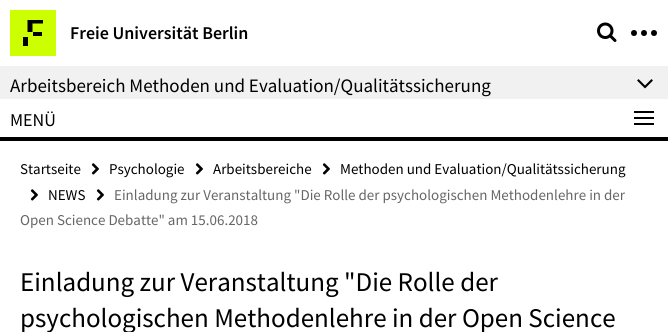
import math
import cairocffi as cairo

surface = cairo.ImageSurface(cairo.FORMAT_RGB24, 668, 332)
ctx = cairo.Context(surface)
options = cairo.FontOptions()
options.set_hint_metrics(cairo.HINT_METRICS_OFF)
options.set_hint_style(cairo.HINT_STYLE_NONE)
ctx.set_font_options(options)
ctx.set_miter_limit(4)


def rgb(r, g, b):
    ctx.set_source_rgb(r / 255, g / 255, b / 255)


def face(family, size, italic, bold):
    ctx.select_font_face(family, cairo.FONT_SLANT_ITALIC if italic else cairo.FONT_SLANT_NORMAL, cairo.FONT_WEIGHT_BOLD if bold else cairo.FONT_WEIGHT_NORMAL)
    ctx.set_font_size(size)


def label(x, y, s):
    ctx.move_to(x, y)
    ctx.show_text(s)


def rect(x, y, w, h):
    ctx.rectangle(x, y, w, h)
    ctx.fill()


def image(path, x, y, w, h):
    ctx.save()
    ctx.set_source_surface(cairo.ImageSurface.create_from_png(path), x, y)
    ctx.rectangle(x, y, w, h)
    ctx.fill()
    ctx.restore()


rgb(255, 255, 255)
ctx.paint()
rgb(204, 255, 0)
rect(10, 10, 46, 46)
rgb(0, 0, 0)
ctx.new_path()
ctx.move_to(27.5, 20)
ctx.line_to(43, 20)
ctx.line_to(43, 23.5)
ctx.line_to(32.5, 23.5)
ctx.line_to(32.5, 32)
ctx.line_to(27.5, 32)
ctx.close_path()
ctx.fill()
rect(33, 32, 9, 4)
rect(23, 37, 5, 9)
face('Source Sans Pro SemiBold', 18, 0, 0)
label(70, 39, 'Freie Universität Berlin')
image('image0.png', 597, 22, 20, 20)
ctx.arc(634, 33, 3, 0, 2 * math.pi)
ctx.fill()
ctx.arc(644, 33, 3, 0, 2 * math.pi)
ctx.fill()
ctx.arc(654, 33, 3, 0, 2 * math.pi)
ctx.fill()
rgb(241, 241, 241)
rect(0, 66, 668, 33)
face('Source Sans Pro', 19, 0, 0)
rgb(0, 0, 0)
label(10, 92, 'Arbeitsbereich Methoden und Evaluation/Qualitätssicherung')
image('image1.png', 637, 79, 16, 10)
rect(0, 137, 668, 4)
face('Source Sans Pro', 18, 0, 0)
label(10, 126, 'MENÜ')
rect(634, 111, 20, 2)
rect(634, 117, 20, 2)
rect(634, 123, 20, 2)
face('Source Sans Pro', 15, 0, 0)
label(20, 174, 'Startseite')
image('image2.png', 91, 163, 8, 12)
label(109, 174, 'Psychologie')
image('image2.png', 195, 163, 8, 12)
label(213, 174, 'Arbeitsbereiche')
image('image2.png', 322, 163, 8, 12)
label(340, 174, 'Methoden und Evaluation/Qualitätssicherung')
image('image2.png', 30, 189, 8, 12)
label(48, 200, 'NEWS')
image('image2.png', 96, 189, 8, 12)
rgb(102, 102, 102)
label(114, 200, 'Einladung zur Veranstaltung "Die Rolle der psychologischen Methodenlehre in der')
label(20, 225, 'Open Science Debatte" am 15.06.2018')
face('Source Sans Pro', 27, 0, 0)
rgb(0, 0, 0)
label(20, 291, 'Einladung zur Veranstaltung "Die Rolle der')
label(20, 327, 'psychologischen Methodenlehre in der Open Science')
surface.write_to_png('render.png')
